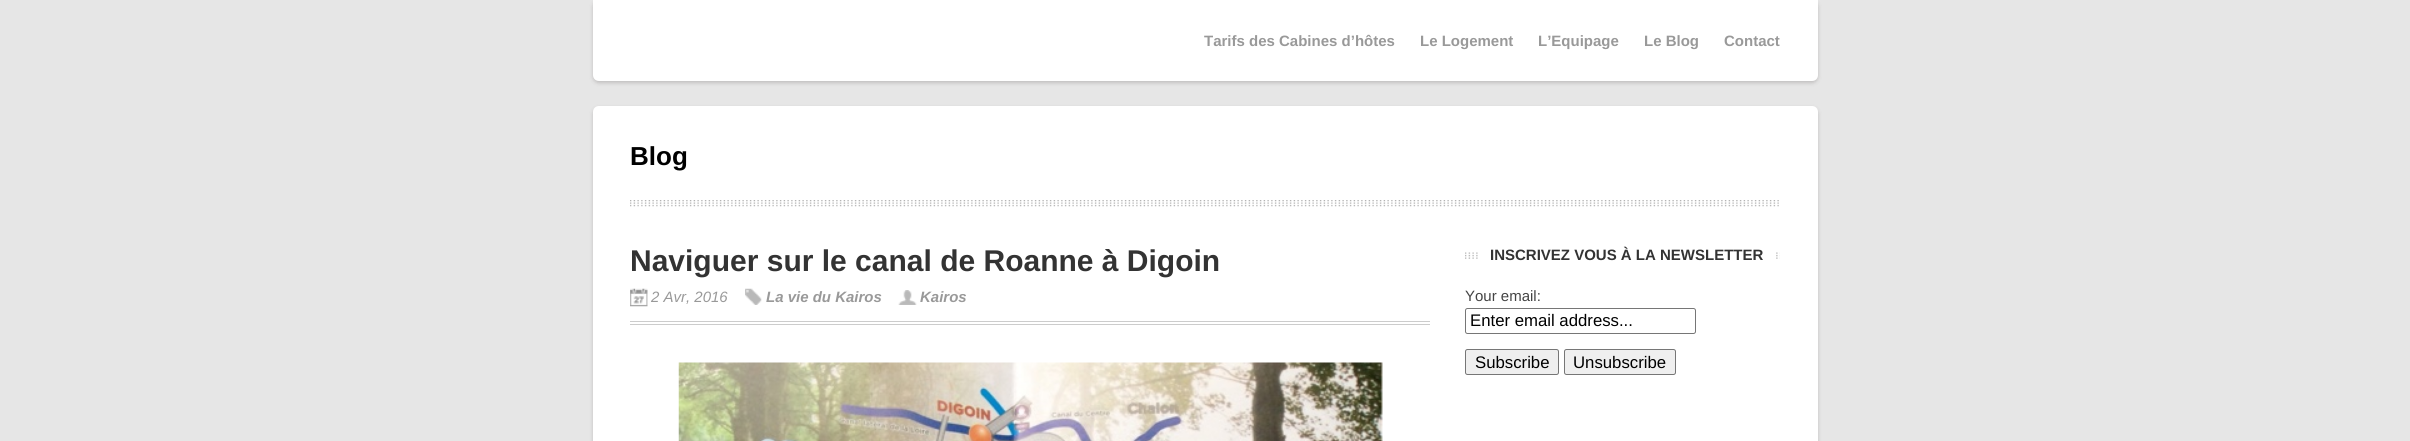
import math
import cairocffi as cairo

surface = cairo.ImageSurface(cairo.FORMAT_RGB24, 2410, 441)
ctx = cairo.Context(surface)
options = cairo.FontOptions()
options.set_hint_metrics(cairo.HINT_METRICS_OFF)
options.set_hint_style(cairo.HINT_STYLE_NONE)
ctx.set_font_options(options)
ctx.set_miter_limit(4)


def rgb(r, g, b):
    ctx.set_source_rgb(r / 255, g / 255, b / 255)


def face(family, size, italic, bold):
    ctx.select_font_face(family, cairo.FONT_SLANT_ITALIC if italic else cairo.FONT_SLANT_NORMAL, cairo.FONT_WEIGHT_BOLD if bold else cairo.FONT_WEIGHT_NORMAL)
    ctx.set_font_size(size)


def label(x, y, s):
    ctx.move_to(x, y)
    ctx.show_text(s)


def rect(x, y, w, h):
    ctx.rectangle(x, y, w, h)
    ctx.fill()


def rrect(x, y, w, h, r):
    ctx.new_sub_path()
    for i, (u, v) in enumerate([(x + w - r, y + h - r), (x + r, y + h - r), (x + r, y + r), (x + w - r, y + r)]):
        ctx.arc(u, v, r, i * math.pi / 2, (i + 1) * math.pi / 2)
    ctx.close_path()


def soft_shadow(x, y, w, h, r, blur, alpha):
    ctx.push_group_with_content(cairo.CONTENT_ALPHA)
    ctx.set_operator(cairo.OPERATOR_SOURCE)
    for i in range(15, -16, -2):
        e = blur * i / 6
        if min(w, h) + 2 * e > 0:
            ctx.set_source_rgba(0, 0, 0, alpha * math.erfc((i - 1) / 8.5) / 2)
            rrect(x - e, y - e, w + 2 * e, h + 2 * e, max(0, min(r + e + blur * .6, min(w, h) / 2 + e)))
            ctx.fill()
    ctx.mask(ctx.pop_group())


def image(path, x, y, w, h):
    ctx.save()
    ctx.set_source_surface(cairo.ImageSurface.create_from_png(path), x, y)
    ctx.rectangle(x, y, w, h)
    ctx.fill()
    ctx.restore()


rgb(230, 230, 230)
ctx.paint()
rgb(34, 25, 25)
soft_shadow(593, 1, 1225, 82, 6, 2, 0.2)
rgb(255, 255, 255)
ctx.new_path()
ctx.move_to(593, 0)
ctx.line_to(1818, 0)
ctx.line_to(1818, 75)
ctx.curve_to(1818, 78.5, 1815.5, 81, 1812, 81)
ctx.line_to(599, 81)
ctx.curve_to(595.5, 81, 593, 78.5, 593, 75)
ctx.close_path()
ctx.fill()
face('Liberation Sans', 15, 0, 1)
rgb(153, 153, 153)
label(1204, 46, 'Tarifs des Cabines d’hôtes')
label(1420, 46, 'Le Logement')
label(1538, 46, 'L’Equipage')
label(1644, 46, 'Le Blog')
label(1724, 46, 'Contact')
rgb(34, 25, 25)
soft_shadow(593, 108, 1225, 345, 6, 2, 0.2)
rgb(255, 255, 255)
ctx.new_path()
ctx.move_to(599, 106)
ctx.line_to(1812, 106)
ctx.curve_to(1815.5, 106, 1818, 108.5, 1818, 112)
ctx.line_to(1818, 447)
ctx.line_to(593, 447)
ctx.line_to(593, 112)
ctx.curve_to(593, 108.5, 595.5, 106, 599, 106)
ctx.close_path()
ctx.fill()
image('image0.png', 630, 200, 1149, 7)
face('Liberation Sans', 26, 0, 1)
rgb(0, 0, 0)
label(630, 165, 'Blog')
face('Liberation Sans', 30, 0, 1)
rgb(51, 51, 51)
label(630, 271, 'Naviguer sur le canal de Roanne à Digoin')
rgb(204, 204, 204)
rect(630, 321, 800, 1)
rect(630, 324, 800, 1)
image('image1.png', 630, 288, 18, 19)
face('Liberation Sans', 15, 1, 0)
rgb(153, 153, 153)
label(651, 302, '2 Avr, 2016')
image('image2.png', 745, 288, 17, 17)
face('Liberation Sans', 15, 1, 1)
label(766, 302, 'La vie du Kairos')
image('image3.png', 898, 290, 19, 15)
label(920, 302, 'Kairos')
image('image4.png', 678, 362, 705, 79)
image('image5.png', 1465, 252, 315, 7)
rgb(255, 255, 255)
rect(1479, 252, 295, 7)
face('Liberation Sans', 15, 0, 1)
rgb(51, 51, 51)
label(1490, 260, 'INSCRIVEZ VOUS À LA NEWSLETTER')
face('Liberation Sans', 15, 0, 0)
rgb(68, 68, 68)
label(1465, 301, 'Your email:')
rrect(1465.5, 308.5, 230, 25, 2)
rgb(118, 118, 118)
ctx.set_line_width(1)
ctx.stroke()
face('Liberation Sans', 16.75, 0, 0)
rgb(0, 0, 0)
label(1470, 326, 'Enter email address...')
rgb(239, 239, 239)
rrect(1465.5, 349.5, 93, 25, 2)
ctx.fill_preserve()
rgb(118, 118, 118)
ctx.stroke()
rgb(0, 0, 0)
label(1475, 368, 'Subscribe')
rgb(239, 239, 239)
rrect(1564.5, 349.5, 111, 25, 2)
ctx.fill_preserve()
rgb(118, 118, 118)
ctx.stroke()
rgb(0, 0, 0)
label(1573, 368, 'Unsubscribe')
surface.write_to_png('render.png')
